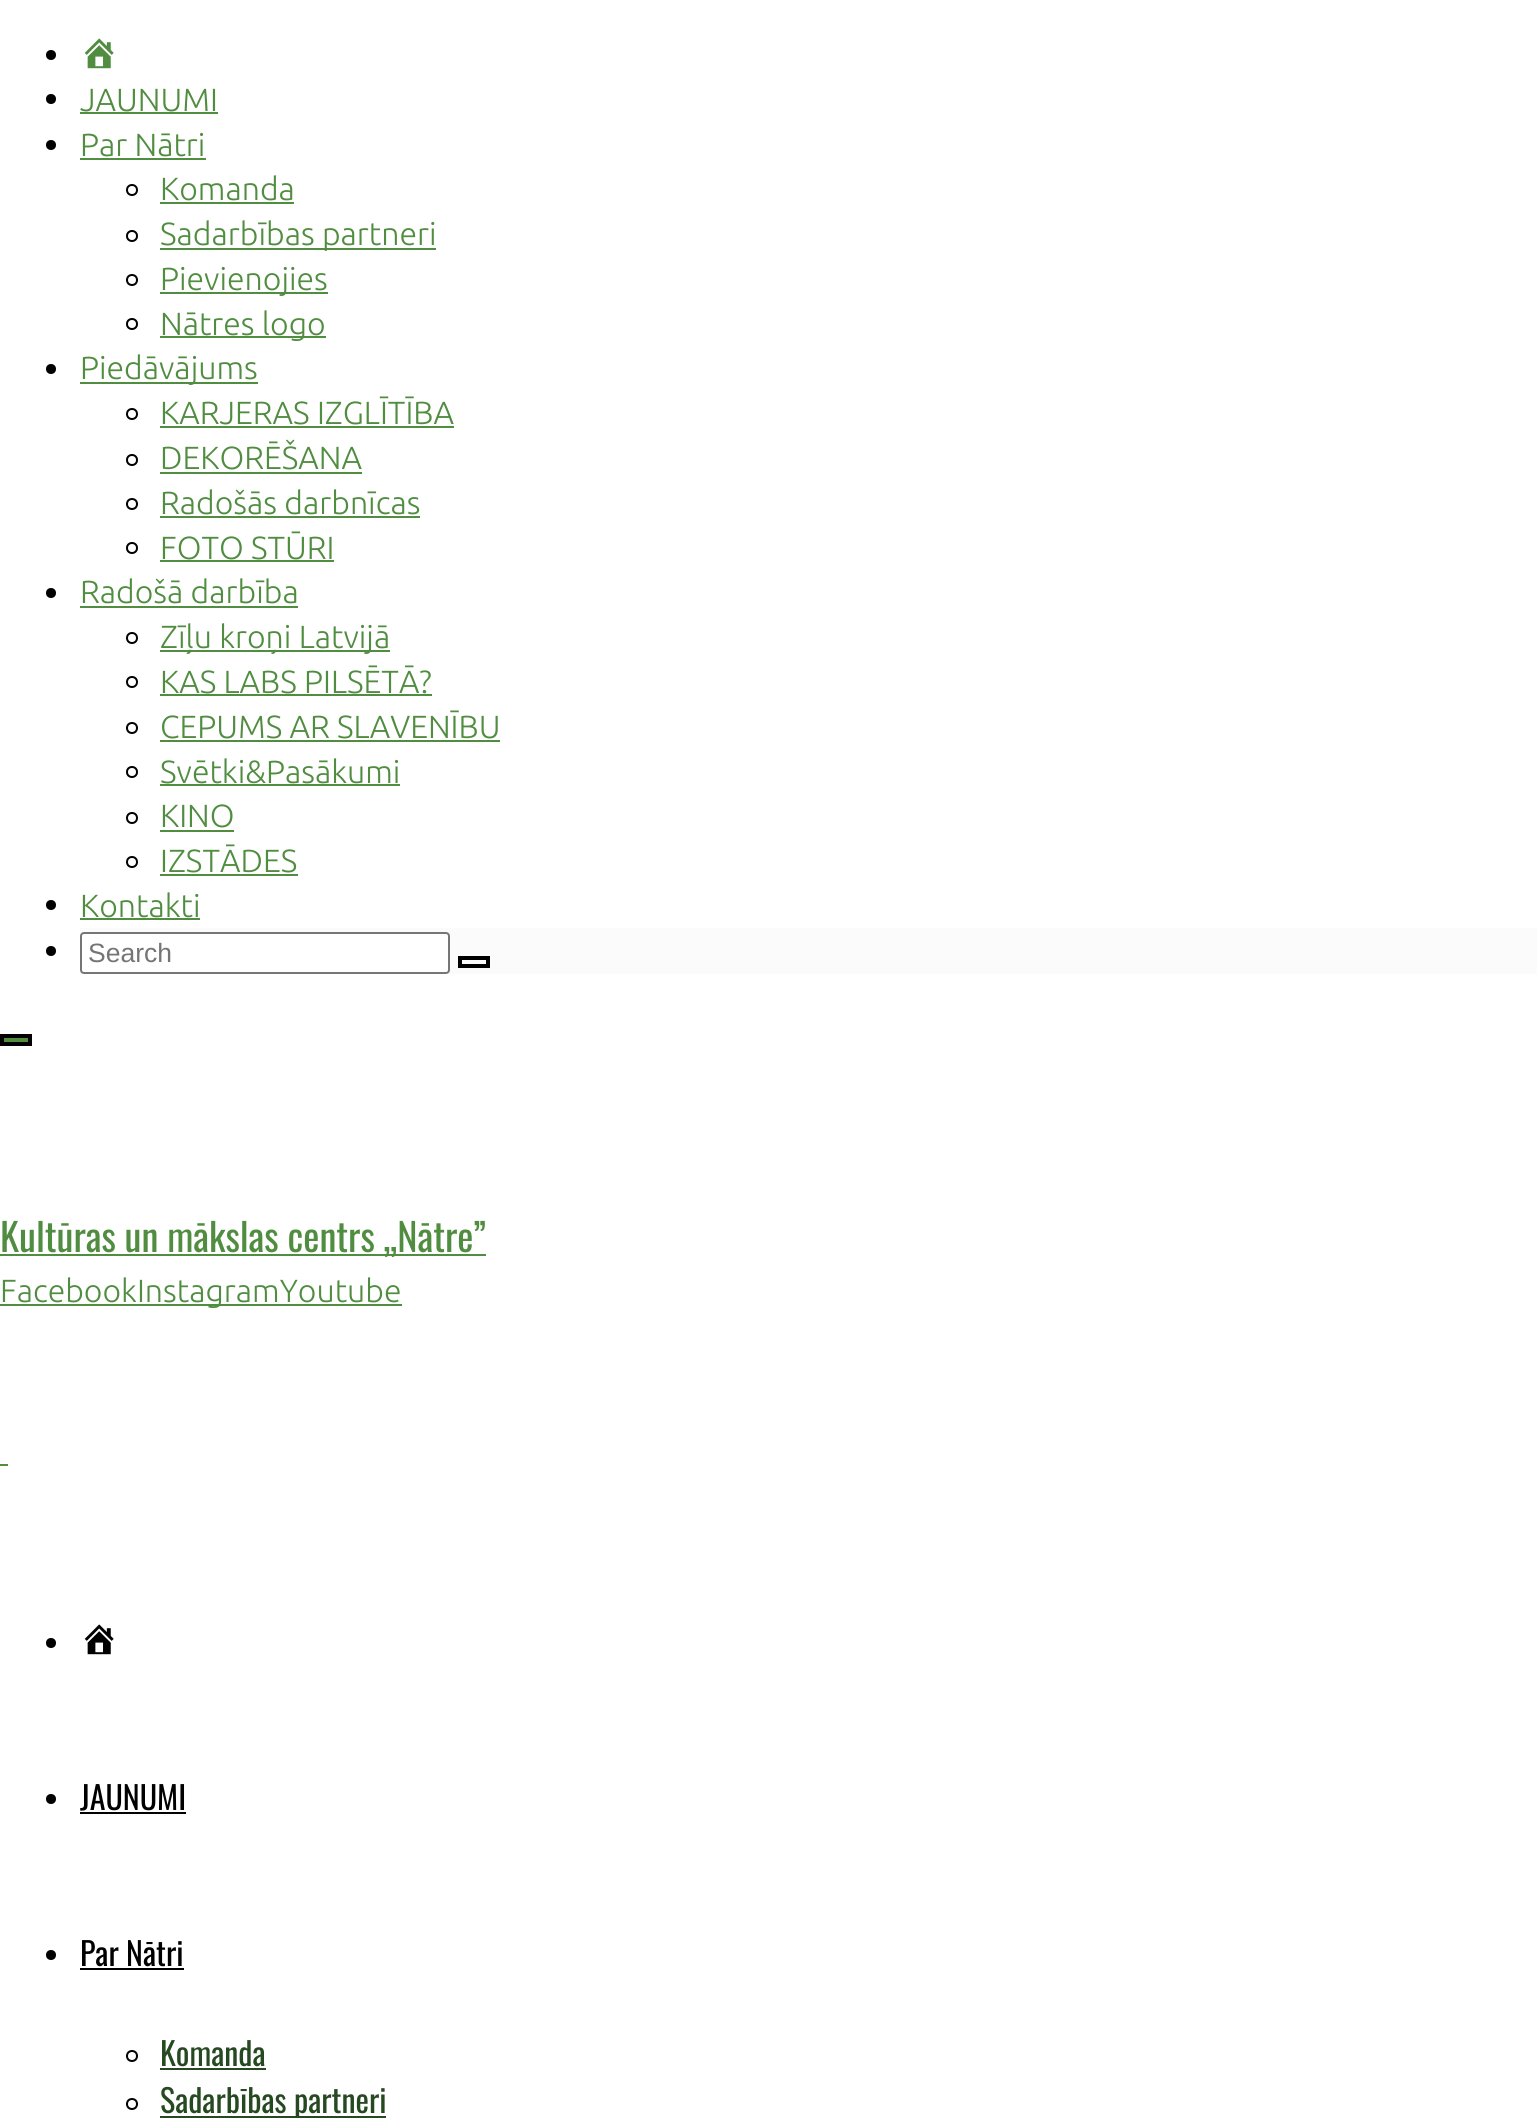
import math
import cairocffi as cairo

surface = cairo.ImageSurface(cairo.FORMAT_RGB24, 1537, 2118)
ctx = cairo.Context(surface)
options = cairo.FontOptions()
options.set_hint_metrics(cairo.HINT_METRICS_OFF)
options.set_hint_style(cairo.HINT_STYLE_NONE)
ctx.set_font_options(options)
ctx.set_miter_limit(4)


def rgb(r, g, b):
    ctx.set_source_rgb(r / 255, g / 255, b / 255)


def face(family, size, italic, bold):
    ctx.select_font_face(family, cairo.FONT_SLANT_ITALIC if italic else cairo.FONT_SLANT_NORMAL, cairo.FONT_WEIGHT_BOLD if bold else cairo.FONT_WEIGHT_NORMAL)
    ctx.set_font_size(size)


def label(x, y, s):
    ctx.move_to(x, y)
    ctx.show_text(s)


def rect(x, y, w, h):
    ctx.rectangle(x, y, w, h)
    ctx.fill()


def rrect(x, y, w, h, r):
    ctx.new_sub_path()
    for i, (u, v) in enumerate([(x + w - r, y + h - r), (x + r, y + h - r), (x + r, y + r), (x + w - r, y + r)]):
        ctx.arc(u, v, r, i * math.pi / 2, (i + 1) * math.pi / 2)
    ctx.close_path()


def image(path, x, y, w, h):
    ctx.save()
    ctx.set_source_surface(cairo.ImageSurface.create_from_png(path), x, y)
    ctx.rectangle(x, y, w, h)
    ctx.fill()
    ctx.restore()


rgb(255, 255, 255)
ctx.paint()
rgb(0, 0, 0)
ctx.arc(51, 55, 5, 0, 2 * math.pi)
ctx.fill()
image('image0.png', 84, 38, 30, 31)
ctx.arc(51, 99, 5, 0, 2 * math.pi)
ctx.fill()
face('Ubuntu Light', 32, 0, 0)
rgb(80, 141, 64)
label(80, 111, 'JAUNUMI')
rect(80, 112, 138, 2)
rgb(0, 0, 0)
ctx.new_path()
ctx.arc(51, 145, 5, 0, 2 * math.pi)
ctx.fill()
rgb(80, 141, 64)
label(80, 156, 'Par Nātri')
rect(80, 158, 126, 2)
ctx.new_path()
ctx.arc(132, 190, 5, 0, 2 * math.pi)
rgb(0, 0, 0)
ctx.stroke()
rgb(80, 141, 64)
label(160, 200, 'Komanda')
rect(160, 202, 134, 2)
ctx.new_path()
ctx.arc(132, 236, 5, 0, 2 * math.pi)
rgb(0, 0, 0)
ctx.stroke()
rgb(80, 141, 64)
rect(160, 248, 276, 2)
label(160, 245, 'Sadarbības partneri')
ctx.new_path()
ctx.arc(132, 280, 5, 0, 2 * math.pi)
rgb(0, 0, 0)
ctx.stroke()
rgb(80, 141, 64)
rect(160, 292, 168, 2)
label(160, 290, 'Pievienojies')
ctx.new_path()
ctx.arc(132, 324, 5, 0, 2 * math.pi)
rgb(0, 0, 0)
ctx.stroke()
rgb(80, 141, 64)
rect(160, 336, 166, 2)
label(160, 335, 'Nātres logo')
rgb(0, 0, 0)
ctx.new_path()
ctx.arc(51, 369, 5, 0, 2 * math.pi)
ctx.fill()
rgb(80, 141, 64)
rect(80, 382, 178, 2)
label(80, 379, 'Piedāvājums')
ctx.new_path()
ctx.arc(132, 414, 5, 0, 2 * math.pi)
rgb(0, 0, 0)
ctx.stroke()
rgb(80, 141, 64)
label(160, 424, 'KARJERAS IZGLĪTĪBA')
rect(160, 426, 294, 2)
ctx.new_path()
ctx.arc(132, 460, 5, 0, 2 * math.pi)
rgb(0, 0, 0)
ctx.stroke()
rgb(80, 141, 64)
label(160, 469, 'DEKORĒŠANA')
rect(160, 472, 202, 2)
ctx.new_path()
ctx.arc(132, 504, 5, 0, 2 * math.pi)
rgb(0, 0, 0)
ctx.stroke()
rgb(80, 141, 64)
label(160, 514, 'Radošās darbnīcas')
rect(160, 516, 260, 2)
ctx.new_path()
ctx.arc(132, 548, 5, 0, 2 * math.pi)
rgb(0, 0, 0)
ctx.stroke()
rgb(80, 141, 64)
label(160, 559, 'FOTO STŪRI')
rect(160, 560, 174, 2)
rgb(0, 0, 0)
ctx.new_path()
ctx.arc(51, 593, 5, 0, 2 * math.pi)
ctx.fill()
rgb(80, 141, 64)
label(80, 603, 'Radošā darbība')
rect(80, 606, 218, 2)
ctx.new_path()
ctx.arc(132, 638, 5, 0, 2 * math.pi)
rgb(0, 0, 0)
ctx.stroke()
rgb(80, 141, 64)
rect(160, 650, 230, 2)
label(160, 648, 'Zīļu kroņi Latvijā')
ctx.new_path()
ctx.arc(132, 682, 5, 0, 2 * math.pi)
rgb(0, 0, 0)
ctx.stroke()
rgb(80, 141, 64)
label(160, 693, 'KAS LABS PILSĒTĀ?')
rect(160, 694, 272, 2)
ctx.new_path()
ctx.arc(132, 728, 5, 0, 2 * math.pi)
rgb(0, 0, 0)
ctx.stroke()
rgb(80, 141, 64)
label(160, 738, 'CEPUMS AR SLAVENĪBU')
rect(160, 740, 340, 2)
ctx.new_path()
ctx.arc(132, 772, 5, 0, 2 * math.pi)
rgb(0, 0, 0)
ctx.stroke()
rgb(80, 141, 64)
label(160, 783, 'Svētki&Pasākumi')
rect(160, 784, 240, 2)
ctx.new_path()
ctx.arc(132, 818, 5, 0, 2 * math.pi)
rgb(0, 0, 0)
ctx.stroke()
rgb(80, 141, 64)
label(160, 827, 'KINO')
rect(160, 830, 74, 2)
ctx.new_path()
ctx.arc(132, 862, 5, 0, 2 * math.pi)
rgb(0, 0, 0)
ctx.stroke()
rgb(80, 141, 64)
label(160, 872, 'IZSTĀDES')
rect(160, 874, 138, 2)
rgb(0, 0, 0)
ctx.new_path()
ctx.arc(51, 905, 5, 0, 2 * math.pi)
ctx.fill()
rgb(80, 141, 64)
label(80, 917, 'Kontakti')
rect(80, 918, 120, 2)
rgb(0, 0, 0)
ctx.new_path()
ctx.arc(51, 951, 5, 0, 2 * math.pi)
ctx.fill()
rgb(251, 251, 251)
rect(80, 928, 1457, 46)
rgb(255, 255, 255)
rrect(81, 933, 368, 40, 3)
ctx.fill_preserve()
rgb(118, 118, 118)
ctx.stroke()
face('Liberation Sans', 26.5, 0, 0)
rgb(117, 117, 117)
label(88, 962, 'Search')
ctx.rectangle(460, 958, 28, 8)
rgb(0, 0, 0)
ctx.set_line_width(4)
ctx.stroke()
rgb(80, 141, 64)
ctx.rectangle(2, 1036, 28, 8)
ctx.fill_preserve()
rgb(0, 0, 0)
ctx.stroke()
rgb(80, 141, 64)
rect(0, 1254, 486, 2)
face('Oswald', 38.4, 0, 0)
label(0, 1252, 'Kultūras un mākslas centrs „Nātre”')
rect(0, 1304, 402, 2)
face('Ubuntu Light', 32, 0, 0)
label(0, 1302, 'FacebookInstagramYoutube')
rect(0, 1464, 8, 2)
rgb(0, 0, 0)
ctx.new_path()
ctx.arc(51, 1643, 5, 0, 2 * math.pi)
ctx.fill()
image('image1.png', 84, 1624, 30, 31)
ctx.arc(51, 1799, 5, 0, 2 * math.pi)
ctx.fill()
face('Oswald', 32, 0, 0)
label(80, 1810, 'JAUNUMI')
rect(80, 1812, 106, 2)
ctx.new_path()
ctx.arc(51, 1955, 5, 0, 2 * math.pi)
ctx.fill()
label(80, 1966, 'Par Nātri')
rect(80, 1968, 104, 2)
ctx.new_path()
ctx.arc(132, 2056, 5, 0, 2 * math.pi)
ctx.set_line_width(2)
ctx.stroke()
rgb(38, 73, 33)
label(160, 2066, 'Komanda')
rect(160, 2068, 106, 2)
ctx.new_path()
ctx.arc(132, 2104, 5, 0, 2 * math.pi)
rgb(0, 0, 0)
ctx.stroke()
rgb(38, 73, 33)
rect(160, 2116, 226, 2)
label(160, 2113, 'Sadarbības partneri')
surface.write_to_png('render.png')
